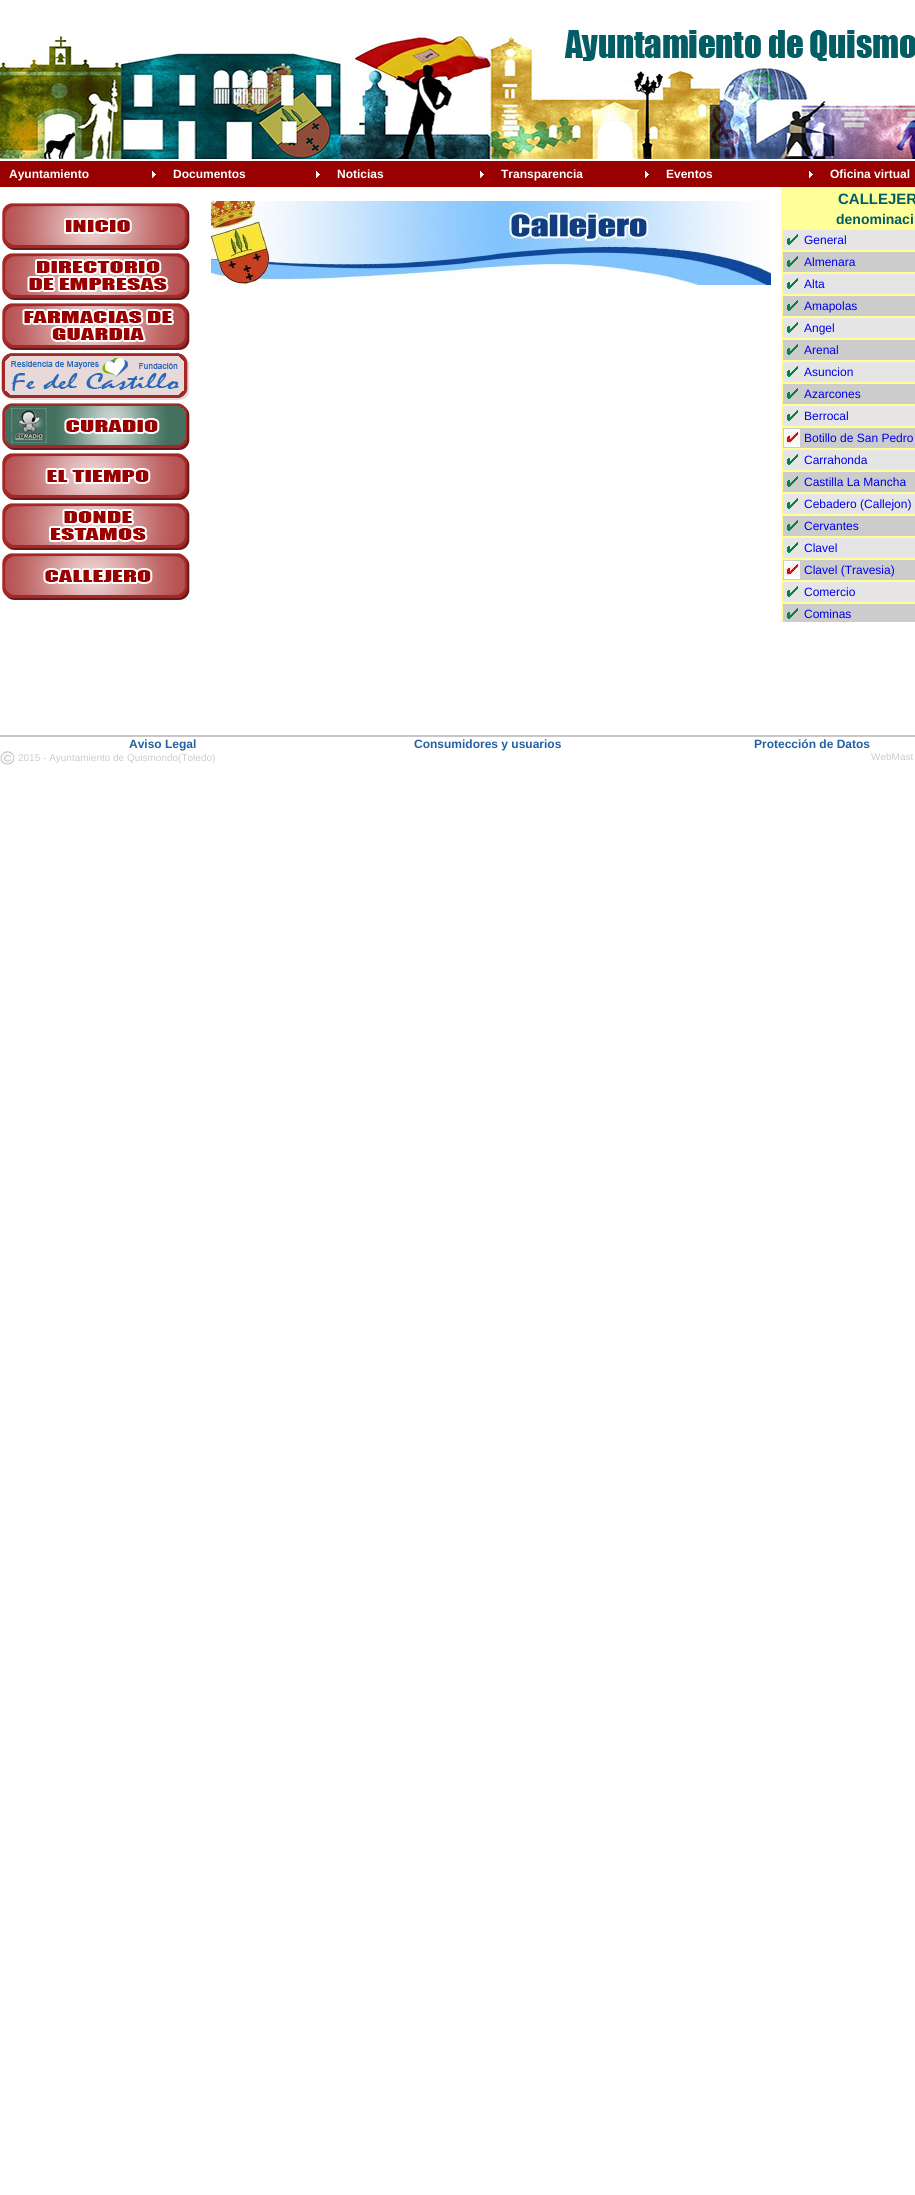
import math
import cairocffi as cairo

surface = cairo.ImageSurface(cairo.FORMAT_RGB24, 915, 2195)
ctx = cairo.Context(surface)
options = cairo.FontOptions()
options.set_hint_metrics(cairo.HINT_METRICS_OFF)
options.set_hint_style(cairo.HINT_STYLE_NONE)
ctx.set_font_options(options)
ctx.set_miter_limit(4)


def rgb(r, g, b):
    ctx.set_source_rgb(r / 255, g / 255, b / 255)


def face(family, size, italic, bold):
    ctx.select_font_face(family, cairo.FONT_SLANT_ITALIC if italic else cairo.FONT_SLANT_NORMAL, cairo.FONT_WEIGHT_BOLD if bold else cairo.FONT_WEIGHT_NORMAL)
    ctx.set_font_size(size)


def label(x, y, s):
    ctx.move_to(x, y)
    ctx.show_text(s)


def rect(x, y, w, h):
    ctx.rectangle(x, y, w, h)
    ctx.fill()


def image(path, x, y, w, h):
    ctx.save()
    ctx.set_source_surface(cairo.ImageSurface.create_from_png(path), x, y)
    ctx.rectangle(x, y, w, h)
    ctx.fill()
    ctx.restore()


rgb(255, 255, 255)
ctx.paint()
image('image0.png', 0, 29, 915, 130)
rgb(153, 0, 0)
rect(0, 161, 915, 26)
image('image1.png', 152, 171, 4, 7)
face('Liberation Sans', 12, 0, 1)
rgb(255, 255, 255)
label(9, 178, 'Ayuntamiento')
image('image1.png', 316, 171, 4, 7)
label(173, 178, 'Documentos')
image('image1.png', 480, 171, 4, 7)
label(337, 178, 'Noticias')
image('image1.png', 645, 171, 4, 7)
label(501, 178, 'Transparencia')
image('image1.png', 809, 171, 4, 7)
label(666, 178, 'Eventos')
label(830, 178, 'Oficina virtual')
image('image2.png', 1, 203, 189, 47)
image('image3.png', 1, 253, 189, 47)
image('image4.png', 1, 303, 189, 47)
image('image5.png', 0, 351, 190, 49)
image('image6.png', 0, 401, 190, 49)
image('image7.png', 1, 453, 189, 47)
image('image8.png', 1, 503, 189, 47)
image('image9.png', 1, 553, 189, 47)
image('image10.png', 211, 201, 560, 84)
rgb(255, 255, 153)
rect(781, 187, 134, 435)
face('Liberation Sans', 15, 0, 1)
rgb(2, 92, 100)
label(838, 204, 'CALLEJER')
face('Liberation Sans', 14, 0, 1)
label(836, 224, 'denominaci')
rgb(229, 229, 229)
rect(783, 230, 132, 20)
image('image11.png', 787, 234, 11, 11)
face('Liberation Sans', 12, 0, 0)
rgb(0, 0, 238)
label(804, 244, 'General')
rgb(204, 204, 204)
rect(783, 252, 132, 20)
image('image12.png', 787, 256, 11, 11)
rgb(0, 0, 238)
label(804, 266, 'Almenara')
rgb(229, 229, 229)
rect(783, 274, 132, 20)
image('image11.png', 787, 278, 11, 11)
rgb(0, 0, 238)
label(804, 288, 'Alta')
rgb(204, 204, 204)
rect(783, 296, 132, 20)
image('image12.png', 787, 300, 11, 11)
rgb(0, 0, 238)
label(804, 310, 'Amapolas')
rgb(229, 229, 229)
rect(783, 318, 132, 20)
image('image11.png', 787, 322, 11, 11)
rgb(0, 0, 238)
label(804, 332, 'Angel')
rgb(204, 204, 204)
rect(783, 340, 132, 20)
image('image12.png', 787, 344, 11, 11)
rgb(0, 0, 238)
label(804, 354, 'Arenal')
rgb(229, 229, 229)
rect(783, 362, 132, 20)
image('image11.png', 787, 366, 11, 11)
rgb(0, 0, 238)
label(804, 376, 'Asuncion')
rgb(204, 204, 204)
rect(783, 384, 132, 20)
image('image12.png', 787, 388, 11, 11)
rgb(0, 0, 238)
label(804, 398, 'Azarcones')
rgb(229, 229, 229)
rect(783, 406, 132, 20)
image('image11.png', 787, 410, 11, 11)
rgb(0, 0, 238)
label(804, 420, 'Berrocal')
rgb(204, 204, 204)
rect(783, 428, 132, 20)
image('image13.png', 784, 429, 16, 18)
rgb(0, 0, 238)
label(804, 442, 'Botillo de San Pedro')
rgb(229, 229, 229)
rect(783, 450, 132, 20)
image('image11.png', 787, 454, 11, 11)
rgb(0, 0, 238)
label(804, 464, 'Carrahonda')
rgb(204, 204, 204)
rect(783, 472, 132, 20)
image('image12.png', 787, 476, 11, 11)
rgb(0, 0, 238)
label(804, 486, 'Castilla La Mancha')
rgb(229, 229, 229)
rect(783, 494, 132, 20)
image('image11.png', 787, 498, 11, 11)
rgb(0, 0, 238)
label(804, 508, 'Cebadero (Callejon)')
rgb(204, 204, 204)
rect(783, 516, 132, 20)
image('image12.png', 787, 520, 11, 11)
rgb(0, 0, 238)
label(804, 530, 'Cervantes')
rgb(229, 229, 229)
rect(783, 538, 132, 20)
image('image11.png', 787, 542, 11, 11)
rgb(0, 0, 238)
label(804, 552, 'Clavel')
rgb(204, 204, 204)
rect(783, 560, 132, 20)
image('image13.png', 784, 561, 16, 18)
rgb(0, 0, 238)
label(804, 574, 'Clavel (Travesia)')
rgb(229, 229, 229)
rect(783, 582, 132, 20)
image('image11.png', 787, 586, 11, 11)
rgb(0, 0, 238)
label(804, 596, 'Comercio')
rgb(204, 204, 204)
rect(783, 604, 132, 18)
image('image12.png', 787, 608, 11, 11)
rgb(0, 0, 238)
label(804, 618, 'Cominas')
rgb(200, 200, 200)
rect(0, 735, 915, 2)
face('Liberation Sans', 12, 0, 1)
rgb(35, 97, 161)
label(129, 748, 'Aviso Legal')
label(414, 748, 'Consumidores y usuarios')
label(754, 748, 'Protección de Datos')
image('image14.png', 0, 751, 15, 14)
face('Liberation Sans', 10, 0, 0)
rgb(204, 204, 204)
label(18, 761, '2015 - Ayuntamiento de Quismondo(Toledo)')
label(871, 760, 'WebMast')
surface.write_to_png('render.png')
